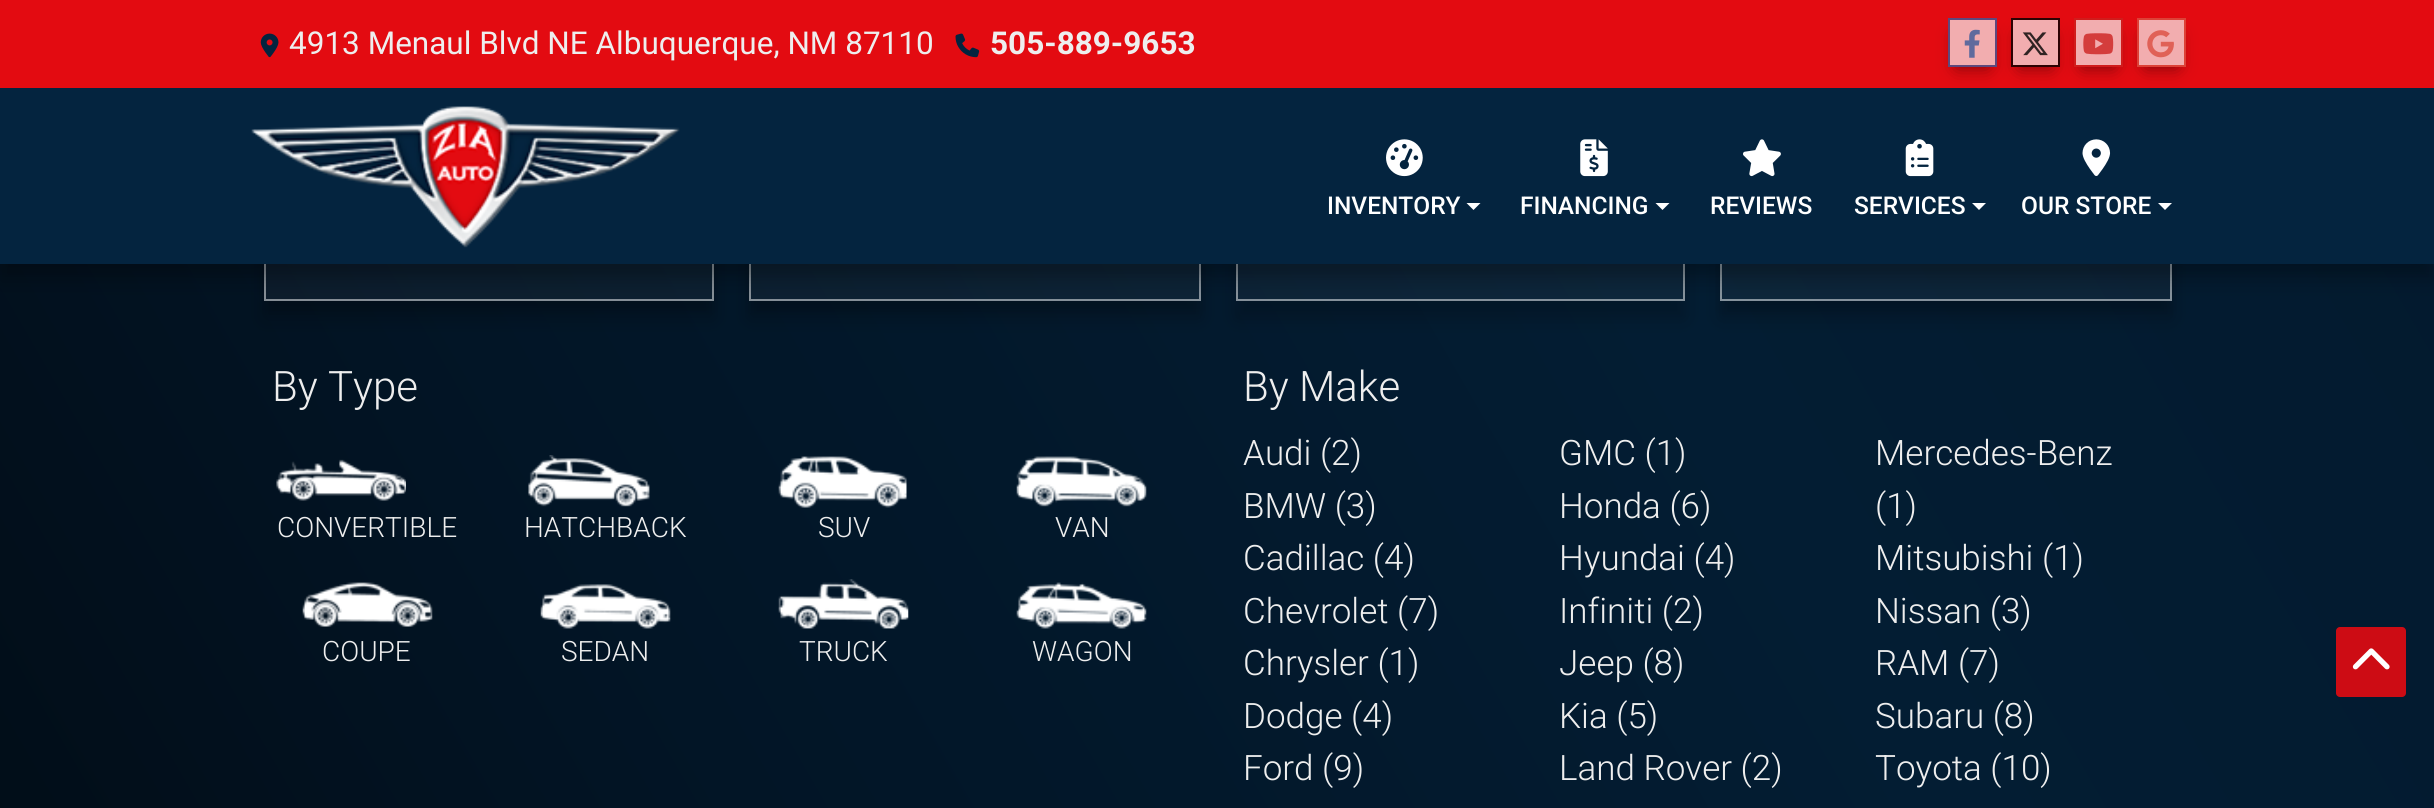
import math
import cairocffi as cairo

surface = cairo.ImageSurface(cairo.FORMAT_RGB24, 2434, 808)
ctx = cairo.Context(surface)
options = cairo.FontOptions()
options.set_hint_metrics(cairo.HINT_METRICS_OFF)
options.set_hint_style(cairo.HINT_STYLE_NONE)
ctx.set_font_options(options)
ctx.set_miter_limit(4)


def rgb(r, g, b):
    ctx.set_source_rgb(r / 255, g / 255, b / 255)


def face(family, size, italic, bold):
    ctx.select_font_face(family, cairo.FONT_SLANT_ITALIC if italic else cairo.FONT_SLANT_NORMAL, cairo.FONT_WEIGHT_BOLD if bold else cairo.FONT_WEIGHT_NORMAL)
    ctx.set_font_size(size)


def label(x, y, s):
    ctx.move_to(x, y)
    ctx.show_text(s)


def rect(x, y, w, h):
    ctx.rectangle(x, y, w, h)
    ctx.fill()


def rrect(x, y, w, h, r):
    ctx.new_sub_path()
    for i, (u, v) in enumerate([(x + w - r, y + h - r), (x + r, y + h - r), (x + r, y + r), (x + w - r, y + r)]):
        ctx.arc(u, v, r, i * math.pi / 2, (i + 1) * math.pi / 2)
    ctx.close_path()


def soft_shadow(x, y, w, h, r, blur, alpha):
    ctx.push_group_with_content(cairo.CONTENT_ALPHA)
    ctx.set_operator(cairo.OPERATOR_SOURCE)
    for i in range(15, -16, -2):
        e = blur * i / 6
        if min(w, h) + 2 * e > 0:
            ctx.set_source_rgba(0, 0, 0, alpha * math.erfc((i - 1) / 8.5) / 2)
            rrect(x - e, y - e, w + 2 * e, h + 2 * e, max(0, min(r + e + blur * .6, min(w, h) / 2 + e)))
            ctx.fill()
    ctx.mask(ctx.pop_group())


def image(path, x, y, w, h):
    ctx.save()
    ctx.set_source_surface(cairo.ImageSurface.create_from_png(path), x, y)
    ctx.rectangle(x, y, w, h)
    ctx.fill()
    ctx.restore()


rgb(255, 255, 255)
ctx.paint()
gradient = cairo.LinearGradient(189, 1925, 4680, -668)
gradient.add_color_stop_rgba(0, 0.004, 0.035, 0.063, 1)
gradient.add_color_stop_rgba(0.2, 0.008, 0.082, 0.149, 1)
gradient.add_color_stop_rgba(0.4, 0.012, 0.114, 0.2, 1)
gradient.add_color_stop_rgba(0.6, 0.012, 0.098, 0.176, 1)
gradient.add_color_stop_rgba(0.8, 0.008, 0.055, 0.102, 1)
gradient.add_color_stop_rgba(1, 0.004, 0.027, 0.051, 1)
ctx.set_source(gradient)
rect(0, 264, 2434, 544)
gradient = cairo.LinearGradient(189, 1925, 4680, -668)
gradient.add_color_stop_rgba(0, 0.043, 0.075, 0.102, 1)
gradient.add_color_stop_rgba(0.2, 0.047, 0.118, 0.184, 1)
gradient.add_color_stop_rgba(0.4, 0.051, 0.149, 0.231, 1)
gradient.add_color_stop_rgba(0.6, 0.051, 0.133, 0.208, 1)
gradient.add_color_stop_rgba(0.8, 0.047, 0.094, 0.137, 1)
gradient.add_color_stop_rgba(1, 0.043, 0.067, 0.09, 1)
ctx.set_source(gradient)
rect(1236, 264, 449, 37)
ctx.save()
ctx.set_fill_rule(cairo.FILL_RULE_EVEN_ODD)
ctx.new_path()
ctx.move_to(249, 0)
ctx.line_to(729, 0)
ctx.line_to(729, 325)
ctx.line_to(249, 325)
ctx.close_path()
ctx.move_to(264, -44)
ctx.line_to(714, -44)
ctx.line_to(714, 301)
ctx.line_to(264, 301)
ctx.close_path()
ctx.clip()
rgb(0, 0, 0)
soft_shadow(264, -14, 450, 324, 0, 4.5, 0.1)
ctx.restore()
ctx.save()
ctx.set_fill_rule(cairo.FILL_RULE_EVEN_ODD)
ctx.new_path()
ctx.move_to(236, 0)
ctx.line_to(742, 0)
ctx.line_to(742, 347)
ctx.line_to(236, 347)
ctx.close_path()
ctx.move_to(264, -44)
ctx.line_to(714, -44)
ctx.line_to(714, 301)
ctx.line_to(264, 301)
ctx.close_path()
ctx.clip()
rgb(0, 0, 0)
soft_shadow(264, -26, 450, 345, 0, 9, 0.2)
ctx.restore()
ctx.set_source_rgba(1, 1, 1, 0.04)
rect(264, 264, 450, 37)
ctx.rectangle(265, -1, 448, 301)
ctx.set_source_rgba(1, 1, 1, 0.5)
ctx.stroke()
ctx.save()
ctx.set_fill_rule(cairo.FILL_RULE_EVEN_ODD)
ctx.new_path()
ctx.move_to(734, 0)
ctx.line_to(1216, 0)
ctx.line_to(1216, 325)
ctx.line_to(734, 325)
ctx.close_path()
ctx.move_to(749, -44)
ctx.line_to(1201, -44)
ctx.line_to(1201, 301)
ctx.line_to(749, 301)
ctx.close_path()
ctx.clip()
rgb(0, 0, 0)
soft_shadow(749, -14, 452, 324, 0, 4.5, 0.1)
ctx.restore()
ctx.save()
ctx.set_fill_rule(cairo.FILL_RULE_EVEN_ODD)
ctx.new_path()
ctx.move_to(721, 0)
ctx.line_to(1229, 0)
ctx.line_to(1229, 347)
ctx.line_to(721, 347)
ctx.close_path()
ctx.move_to(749, -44)
ctx.line_to(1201, -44)
ctx.line_to(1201, 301)
ctx.line_to(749, 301)
ctx.close_path()
ctx.clip()
rgb(0, 0, 0)
soft_shadow(749, -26, 452, 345, 0, 9, 0.2)
ctx.restore()
ctx.set_source_rgba(1, 1, 1, 0.04)
rect(749, 264, 452, 37)
ctx.rectangle(750, -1, 450, 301)
ctx.set_source_rgba(1, 1, 1, 0.5)
ctx.stroke()
ctx.save()
ctx.set_fill_rule(cairo.FILL_RULE_EVEN_ODD)
ctx.new_path()
ctx.move_to(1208, 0)
ctx.line_to(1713, 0)
ctx.line_to(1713, 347)
ctx.line_to(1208, 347)
ctx.close_path()
ctx.move_to(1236, -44)
ctx.line_to(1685, -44)
ctx.line_to(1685, 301)
ctx.line_to(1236, 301)
ctx.close_path()
ctx.clip()
rgb(0, 0, 0)
soft_shadow(1236, -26, 449, 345, 0, 9, 0.2)
ctx.restore()
ctx.rectangle(1237, -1, 447, 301)
ctx.stroke()
ctx.save()
ctx.set_fill_rule(cairo.FILL_RULE_EVEN_ODD)
ctx.new_path()
ctx.move_to(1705, 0)
ctx.line_to(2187, 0)
ctx.line_to(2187, 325)
ctx.line_to(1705, 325)
ctx.close_path()
ctx.move_to(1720, -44)
ctx.line_to(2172, -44)
ctx.line_to(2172, 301)
ctx.line_to(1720, 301)
ctx.close_path()
ctx.clip()
rgb(0, 0, 0)
soft_shadow(1720, -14, 452, 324, 0, 4.5, 0.1)
ctx.restore()
ctx.save()
ctx.set_fill_rule(cairo.FILL_RULE_EVEN_ODD)
ctx.new_path()
ctx.move_to(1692, 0)
ctx.line_to(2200, 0)
ctx.line_to(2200, 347)
ctx.line_to(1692, 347)
ctx.close_path()
ctx.move_to(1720, -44)
ctx.line_to(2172, -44)
ctx.line_to(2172, 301)
ctx.line_to(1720, 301)
ctx.close_path()
ctx.clip()
rgb(0, 0, 0)
soft_shadow(1720, -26, 452, 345, 0, 9, 0.2)
ctx.restore()
ctx.set_source_rgba(1, 1, 1, 0.04)
rect(1720, 264, 452, 37)
ctx.rectangle(1721, -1, 450, 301)
ctx.set_source_rgba(1, 1, 1, 0.5)
ctx.stroke()
rgb(0, 0, 0)
soft_shadow(0, 9, 2434, 264, 0, 4.5, 0.1)
soft_shadow(0, 18, 2434, 264, 0, 9, 0.2)
rgb(4, 36, 63)
rect(0, 88, 2434, 176)
rgb(227, 11, 17)
rect(0, 0, 2434, 88)
image('image0.png', 260, 33, 19, 25)
face('Roboto', 31.5, 0, 0)
rgb(238, 238, 238)
label(289, 54, '4913 Menaul Blvd NE Albuquerque, NM 87110')
image('image1.png', 955, 33, 25, 25)
face('Roboto', 31.5, 0, 1)
label(990, 54, '505-889-9653')
ctx.save()
ctx.set_fill_rule(cairo.FILL_RULE_EVEN_ODD)
ctx.new_path()
ctx.move_to(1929, 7)
ctx.line_to(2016, 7)
ctx.line_to(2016, 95)
ctx.line_to(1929, 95)
ctx.close_path()
ctx.move_to(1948, 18)
ctx.line_to(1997, 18)
ctx.line_to(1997, 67)
ctx.line_to(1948, 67)
ctx.close_path()
ctx.clip()
rgb(45, 2, 3)
soft_shadow(1957, 35, 31, 32, 0, 9, 0.6)
ctx.restore()
ctx.set_source_rgba(0.957, 0.788, 0.792, 0.85)
ctx.rectangle(1949, 19, 47, 47)
ctx.fill_preserve()
rgb(93, 73, 125)
ctx.stroke()
image('image2.png', 1964, 29, 16, 29)
ctx.save()
ctx.set_fill_rule(cairo.FILL_RULE_EVEN_ODD)
ctx.new_path()
ctx.move_to(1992, 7)
ctx.line_to(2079, 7)
ctx.line_to(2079, 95)
ctx.line_to(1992, 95)
ctx.close_path()
ctx.move_to(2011, 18)
ctx.line_to(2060, 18)
ctx.line_to(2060, 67)
ctx.line_to(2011, 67)
ctx.close_path()
ctx.clip()
rgb(0, 0, 0)
soft_shadow(2020, 35, 31, 32, 0, 9, 0.48)
ctx.restore()
ctx.set_source_rgba(0.957, 0.788, 0.792, 0.85)
ctx.rectangle(2012, 19, 47, 47)
ctx.fill_preserve()
rgb(45, 2, 3)
ctx.stroke()
image('image3.png', 2022, 32, 26, 24)
ctx.save()
ctx.set_fill_rule(cairo.FILL_RULE_EVEN_ODD)
ctx.new_path()
ctx.move_to(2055, 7)
ctx.line_to(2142, 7)
ctx.line_to(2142, 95)
ctx.line_to(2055, 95)
ctx.close_path()
ctx.move_to(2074, 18)
ctx.line_to(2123, 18)
ctx.line_to(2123, 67)
ctx.line_to(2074, 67)
ctx.close_path()
ctx.clip()
rgb(0, 0, 0)
soft_shadow(2083, 35, 31, 32, 0, 9, 0.48)
ctx.restore()
ctx.set_source_rgba(0.957, 0.788, 0.792, 0.85)
ctx.rectangle(2075, 19, 47, 47)
ctx.fill_preserve()
rgb(209, 28, 28)
ctx.stroke()
image('image4.png', 2083, 33, 31, 22)
ctx.save()
ctx.set_fill_rule(cairo.FILL_RULE_EVEN_ODD)
ctx.new_path()
ctx.move_to(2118, 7)
ctx.line_to(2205, 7)
ctx.line_to(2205, 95)
ctx.line_to(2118, 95)
ctx.close_path()
ctx.move_to(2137, 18)
ctx.line_to(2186, 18)
ctx.line_to(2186, 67)
ctx.line_to(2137, 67)
ctx.close_path()
ctx.clip()
rgb(0, 0, 0)
soft_shadow(2146, 35, 31, 32, 0, 9, 0.48)
ctx.restore()
ctx.set_source_rgba(0.957, 0.788, 0.792, 0.85)
ctx.rectangle(2138, 19, 47, 47)
ctx.fill_preserve()
rgb(221, 65, 55)
ctx.stroke()
image('image5.png', 2147, 30, 27, 28)
image('image6.png', 251, 106, 429, 142)
image('image7.png', 1386, 139, 37, 38)
face('Roboto Medium', 24.5, 0, 0)
rgb(255, 255, 255)
label(1327, 214, 'INVENTORY')
ctx.new_path()
ctx.move_to(1466.5, 203)
ctx.line_to(1480.5, 203)
ctx.line_to(1473.5, 210)
ctx.close_path()
ctx.fill()
image('image8.png', 1580, 139, 28, 38)
label(1520, 214, 'FINANCING')
ctx.new_path()
ctx.move_to(1655.5, 203)
ctx.line_to(1669.5, 203)
ctx.line_to(1662.5, 210)
ctx.close_path()
ctx.fill()
image('image9.png', 1743, 139, 38, 38)
label(1710, 214, 'REVIEWS')
image('image10.png', 1905, 139, 29, 38)
label(1854, 214, 'SERVICES')
ctx.new_path()
ctx.move_to(1972, 203)
ctx.line_to(1986, 203)
ctx.line_to(1979, 210)
ctx.close_path()
ctx.fill()
image('image11.png', 2082, 139, 29, 37)
label(2021, 214, 'OUR STORE')
ctx.new_path()
ctx.move_to(2158, 203)
ctx.line_to(2172, 203)
ctx.line_to(2165, 210)
ctx.close_path()
ctx.fill()
face('Roboto Light', 42, 0, 0)
rgb(238, 238, 238)
label(272, 401, 'By Type')
image('image12.png', 276, 459, 130, 42)
face('Roboto Light', 28, 0, 0)
label(277, 537, 'CONVERTIBLE')
image('image13.png', 528, 455, 122, 52)
label(524, 537, 'HATCHBACK')
image('image14.png', 778, 456, 129, 52)
label(818, 537, 'SUV')
image('image15.png', 1016, 456, 131, 51)
label(1055, 537, 'VAN')
image('image16.png', 302, 582, 131, 45)
label(322, 661, 'COUPE')
image('image17.png', 540, 584, 131, 45)
label(561, 661, 'SEDAN')
image('image18.png', 778, 579, 131, 50)
label(799, 661, 'TRUCK')
image('image19.png', 1016, 582, 131, 47)
label(1032, 661, 'WAGON')
face('Roboto Light', 42, 0, 0)
label(1243, 401, 'By Make')
face('Roboto Light', 35, 0, 0)
label(1243, 465, 'Audi (2)')
label(1559, 465, 'GMC (1)')
label(1875, 465, 'Mercedes-Benz')
label(1875, 518, '(1)')
label(1243, 518, 'BMW (3)')
label(1559, 518, 'Honda (6)')
label(1243, 570, 'Cadillac (4)')
label(1559, 570, 'Hyundai (4)')
label(1875, 570, 'Mitsubishi (1)')
label(1243, 623, 'Chevrolet (7)')
label(1559, 623, 'Infiniti (2)')
label(1875, 623, 'Nissan (3)')
label(1243, 675, 'Chrysler (1)')
label(1559, 675, 'Jeep (8)')
label(1875, 675, 'RAM (7)')
label(1243, 728, 'Dodge (4)')
label(1559, 728, 'Kia (5)')
label(1875, 728, 'Subaru (8)')
label(1243, 780, 'Ford (9)')
label(1559, 780, 'Land Rover (2)')
label(1875, 780, 'Toyota (10)')
ctx.set_source_rgba(0.89, 0.043, 0.067, 0.9)
rrect(2336, 627, 70, 70, 4)
ctx.fill()
ctx.save()
rrect(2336, 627, 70, 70, 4)
ctx.clip()
ctx.set_fill_rule(cairo.FILL_RULE_EVEN_ODD)
ctx.new_path()
ctx.move_to(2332, 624)
ctx.line_to(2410, 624)
ctx.line_to(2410, 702)
ctx.line_to(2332, 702)
ctx.close_path()
ctx.move_to(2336, 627)
ctx.line_to(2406, 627)
ctx.line_to(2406, 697)
ctx.line_to(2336, 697)
ctx.close_path()
ctx.clip()
rgb(0, 0, 0)
soft_shadow(2336, 628, 70, 70, 0, 1, 0.2)
ctx.restore()
image('image20.png', 2352, 648, 38, 22)
surface.write_to_png('render.png')
